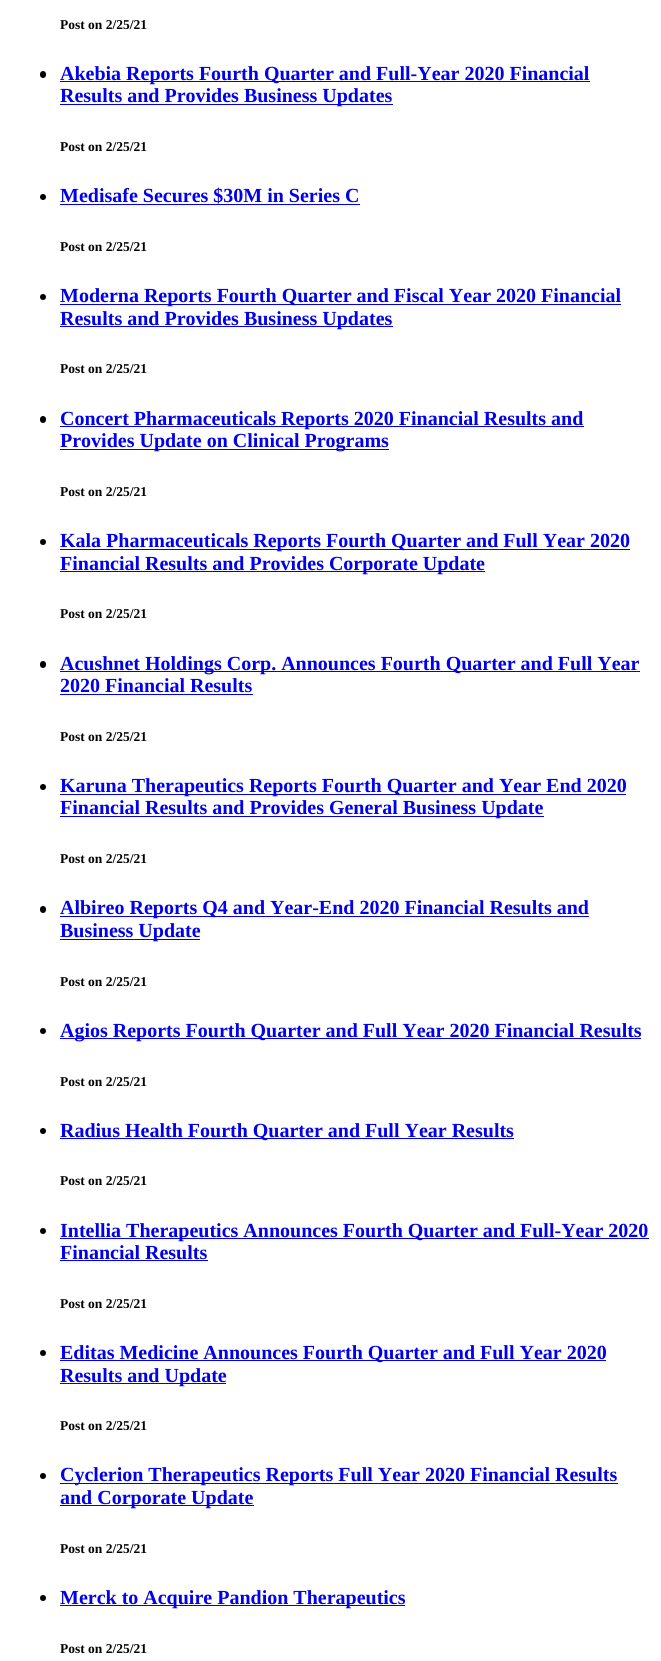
import math
import cairocffi as cairo

surface = cairo.ImageSurface(cairo.FORMAT_RGB24, 661, 1661)
ctx = cairo.Context(surface)
options = cairo.FontOptions()
options.set_hint_metrics(cairo.HINT_METRICS_OFF)
options.set_hint_style(cairo.HINT_STYLE_NONE)
ctx.set_font_options(options)
ctx.set_miter_limit(4)


def rgb(r, g, b):
    ctx.set_source_rgb(r / 255, g / 255, b / 255)


def face(family, size, italic, bold):
    ctx.select_font_face(family, cairo.FONT_SLANT_ITALIC if italic else cairo.FONT_SLANT_NORMAL, cairo.FONT_WEIGHT_BOLD if bold else cairo.FONT_WEIGHT_NORMAL)
    ctx.set_font_size(size)


def label(x, y, s):
    ctx.move_to(x, y)
    ctx.show_text(s)


def rect(x, y, w, h):
    ctx.rectangle(x, y, w, h)
    ctx.fill()


def rrect(x, y, w, h, r):
    ctx.new_sub_path()
    for i, (u, v) in enumerate([(x + w - r, y + h - r), (x + r, y + h - r), (x + r, y + r), (x + w - r, y + r)]):
        ctx.arc(u, v, r, i * math.pi / 2, (i + 1) * math.pi / 2)
    ctx.close_path()


rgb(255, 255, 255)
ctx.paint()
face('Liberation Serif', 13.5, 0, 1)
rgb(0, 0, 0)
label(60, 29, 'Post on 2/25/21')
rrect(40, 71, 6, 7, 3)
ctx.fill()
rgb(0, 0, 238)
rect(60, 81, 530, 1)
face('Liberation Serif', 20, 0, 1)
label(60, 80, 'Akebia Reports Fourth Quarter and Full-Year 2020 Financial')
rect(60, 104, 333, 1)
label(60, 102, 'Results and Provides Business Updates')
face('Liberation Serif', 13.5, 0, 1)
rgb(0, 0, 0)
label(60, 151, 'Post on 2/25/21')
ctx.new_path()
ctx.arc(43, 197, 3, 0, 2 * math.pi)
ctx.fill()
face('Liberation Serif', 20, 0, 1)
rgb(0, 0, 238)
label(60, 202, 'Medisafe Secures $30M in Series C')
rect(60, 204, 300, 1)
face('Liberation Serif', 13.5, 0, 1)
rgb(0, 0, 0)
label(60, 251, 'Post on 2/25/21')
ctx.new_path()
ctx.arc(43, 297, 3, 0, 2 * math.pi)
ctx.fill()
rgb(0, 0, 238)
rect(60, 304, 561, 1)
face('Liberation Serif', 20, 0, 1)
label(60, 302, 'Moderna Reports Fourth Quarter and Fiscal Year 2020 Financial')
rect(60, 326, 333, 1)
label(60, 325, 'Results and Provides Business Updates')
face('Liberation Serif', 13.5, 0, 1)
rgb(0, 0, 0)
label(60, 373, 'Post on 2/25/21')
rrect(40, 416, 6, 7, 3)
ctx.fill()
rgb(0, 0, 238)
rect(60, 426, 524, 1)
face('Liberation Serif', 20, 0, 1)
label(60, 425, 'Concert Pharmaceuticals Reports 2020 Financial Results and')
rect(60, 449, 329, 1)
label(60, 447, 'Provides Update on Clinical Programs')
face('Liberation Serif', 13.5, 0, 1)
rgb(0, 0, 0)
label(60, 496, 'Post on 2/25/21')
ctx.new_path()
ctx.arc(43, 542, 3, 0, 2 * math.pi)
ctx.fill()
rgb(0, 0, 238)
rect(60, 549, 570, 1)
face('Liberation Serif', 20, 0, 1)
label(60, 547, 'Kala Pharmaceuticals Reports Fourth Quarter and Full Year 2020')
rect(60, 571, 425, 1)
label(60, 570, 'Financial Results and Provides Corporate Update')
face('Liberation Serif', 13.5, 0, 1)
rgb(0, 0, 0)
label(60, 618, 'Post on 2/25/21')
rrect(40, 661, 6, 7, 3)
ctx.fill()
rgb(0, 0, 238)
rect(60, 671, 580, 1)
face('Liberation Serif', 20, 0, 1)
label(60, 670, 'Acushnet Holdings Corp. Announces Fourth Quarter and Full Year')
label(60, 692, '2020 Financial Results')
rect(60, 694, 193, 1)
face('Liberation Serif', 13.5, 0, 1)
rgb(0, 0, 0)
label(60, 741, 'Post on 2/25/21')
ctx.new_path()
ctx.arc(43, 787, 3, 0, 2 * math.pi)
ctx.fill()
rgb(0, 0, 238)
rect(60, 794, 566, 1)
face('Liberation Serif', 20, 0, 1)
label(60, 792, 'Karuna Therapeutics Reports Fourth Quarter and Year End 2020')
rect(60, 816, 484, 1)
label(60, 814, 'Financial Results and Provides General Business Update')
face('Liberation Serif', 13.5, 0, 1)
rgb(0, 0, 0)
label(60, 863, 'Post on 2/25/21')
rrect(40, 906, 6, 7, 3)
ctx.fill()
rgb(0, 0, 238)
rect(60, 916, 529, 1)
face('Liberation Serif', 20, 0, 1)
label(60, 914, 'Albireo Reports Q4 and Year-End 2020 Financial Results and')
rect(60, 939, 140, 1)
label(60, 937, 'Business Update')
face('Liberation Serif', 13.5, 0, 1)
rgb(0, 0, 0)
label(60, 986, 'Post on 2/25/21')
ctx.new_path()
ctx.arc(43, 1031, 3, 0, 2 * math.pi)
ctx.fill()
rgb(0, 0, 238)
rect(60, 1038, 581, 1)
face('Liberation Serif', 20, 0, 1)
label(60, 1037, 'Agios Reports Fourth Quarter and Full Year 2020 Financial Results')
face('Liberation Serif', 13.5, 0, 1)
rgb(0, 0, 0)
label(60, 1086, 'Post on 2/25/21')
ctx.new_path()
ctx.arc(43, 1131, 3, 0, 2 * math.pi)
ctx.fill()
rgb(0, 0, 238)
rect(60, 1138, 454, 1)
face('Liberation Serif', 20, 0, 1)
label(60, 1137, 'Radius Health Fourth Quarter and Full Year Results')
face('Liberation Serif', 13.5, 0, 1)
rgb(0, 0, 0)
label(60, 1185, 'Post on 2/25/21')
ctx.new_path()
ctx.arc(43, 1231, 3, 0, 2 * math.pi)
ctx.fill()
rgb(0, 0, 238)
rect(60, 1238, 589, 1)
face('Liberation Serif', 20, 0, 1)
label(60, 1237, 'Intellia Therapeutics Announces Fourth Quarter and Full-Year 2020')
label(60, 1259, 'Financial Results')
rect(60, 1260, 148, 1)
face('Liberation Serif', 13.5, 0, 1)
rgb(0, 0, 0)
label(60, 1308, 'Post on 2/25/21')
ctx.new_path()
ctx.arc(43, 1353, 3, 0, 2 * math.pi)
ctx.fill()
rgb(0, 0, 238)
rect(60, 1360, 546, 1)
face('Liberation Serif', 20, 0, 1)
label(60, 1359, 'Editas Medicine Announces Fourth Quarter and Full Year 2020')
rect(60, 1383, 166, 1)
label(60, 1382, 'Results and Update')
face('Liberation Serif', 13.5, 0, 1)
rgb(0, 0, 0)
label(60, 1430, 'Post on 2/25/21')
ctx.new_path()
ctx.arc(43, 1476, 3, 0, 2 * math.pi)
ctx.fill()
rgb(0, 0, 238)
rect(60, 1483, 558, 1)
face('Liberation Serif', 20, 0, 1)
label(60, 1481, 'Cyclerion Therapeutics Reports Full Year 2020 Financial Results')
rect(60, 1505, 194, 1)
label(60, 1504, 'and Corporate Update')
face('Liberation Serif', 13.5, 0, 1)
rgb(0, 0, 0)
label(60, 1553, 'Post on 2/25/21')
ctx.new_path()
ctx.arc(43, 1598, 3, 0, 2 * math.pi)
ctx.fill()
rgb(0, 0, 238)
rect(60, 1605, 345, 1)
face('Liberation Serif', 20, 0, 1)
label(60, 1604, 'Merck to Acquire Pandion Therapeutics')
face('Liberation Serif', 13.5, 0, 1)
rgb(0, 0, 0)
label(60, 1653, 'Post on 2/25/21')
surface.write_to_png('render.png')
